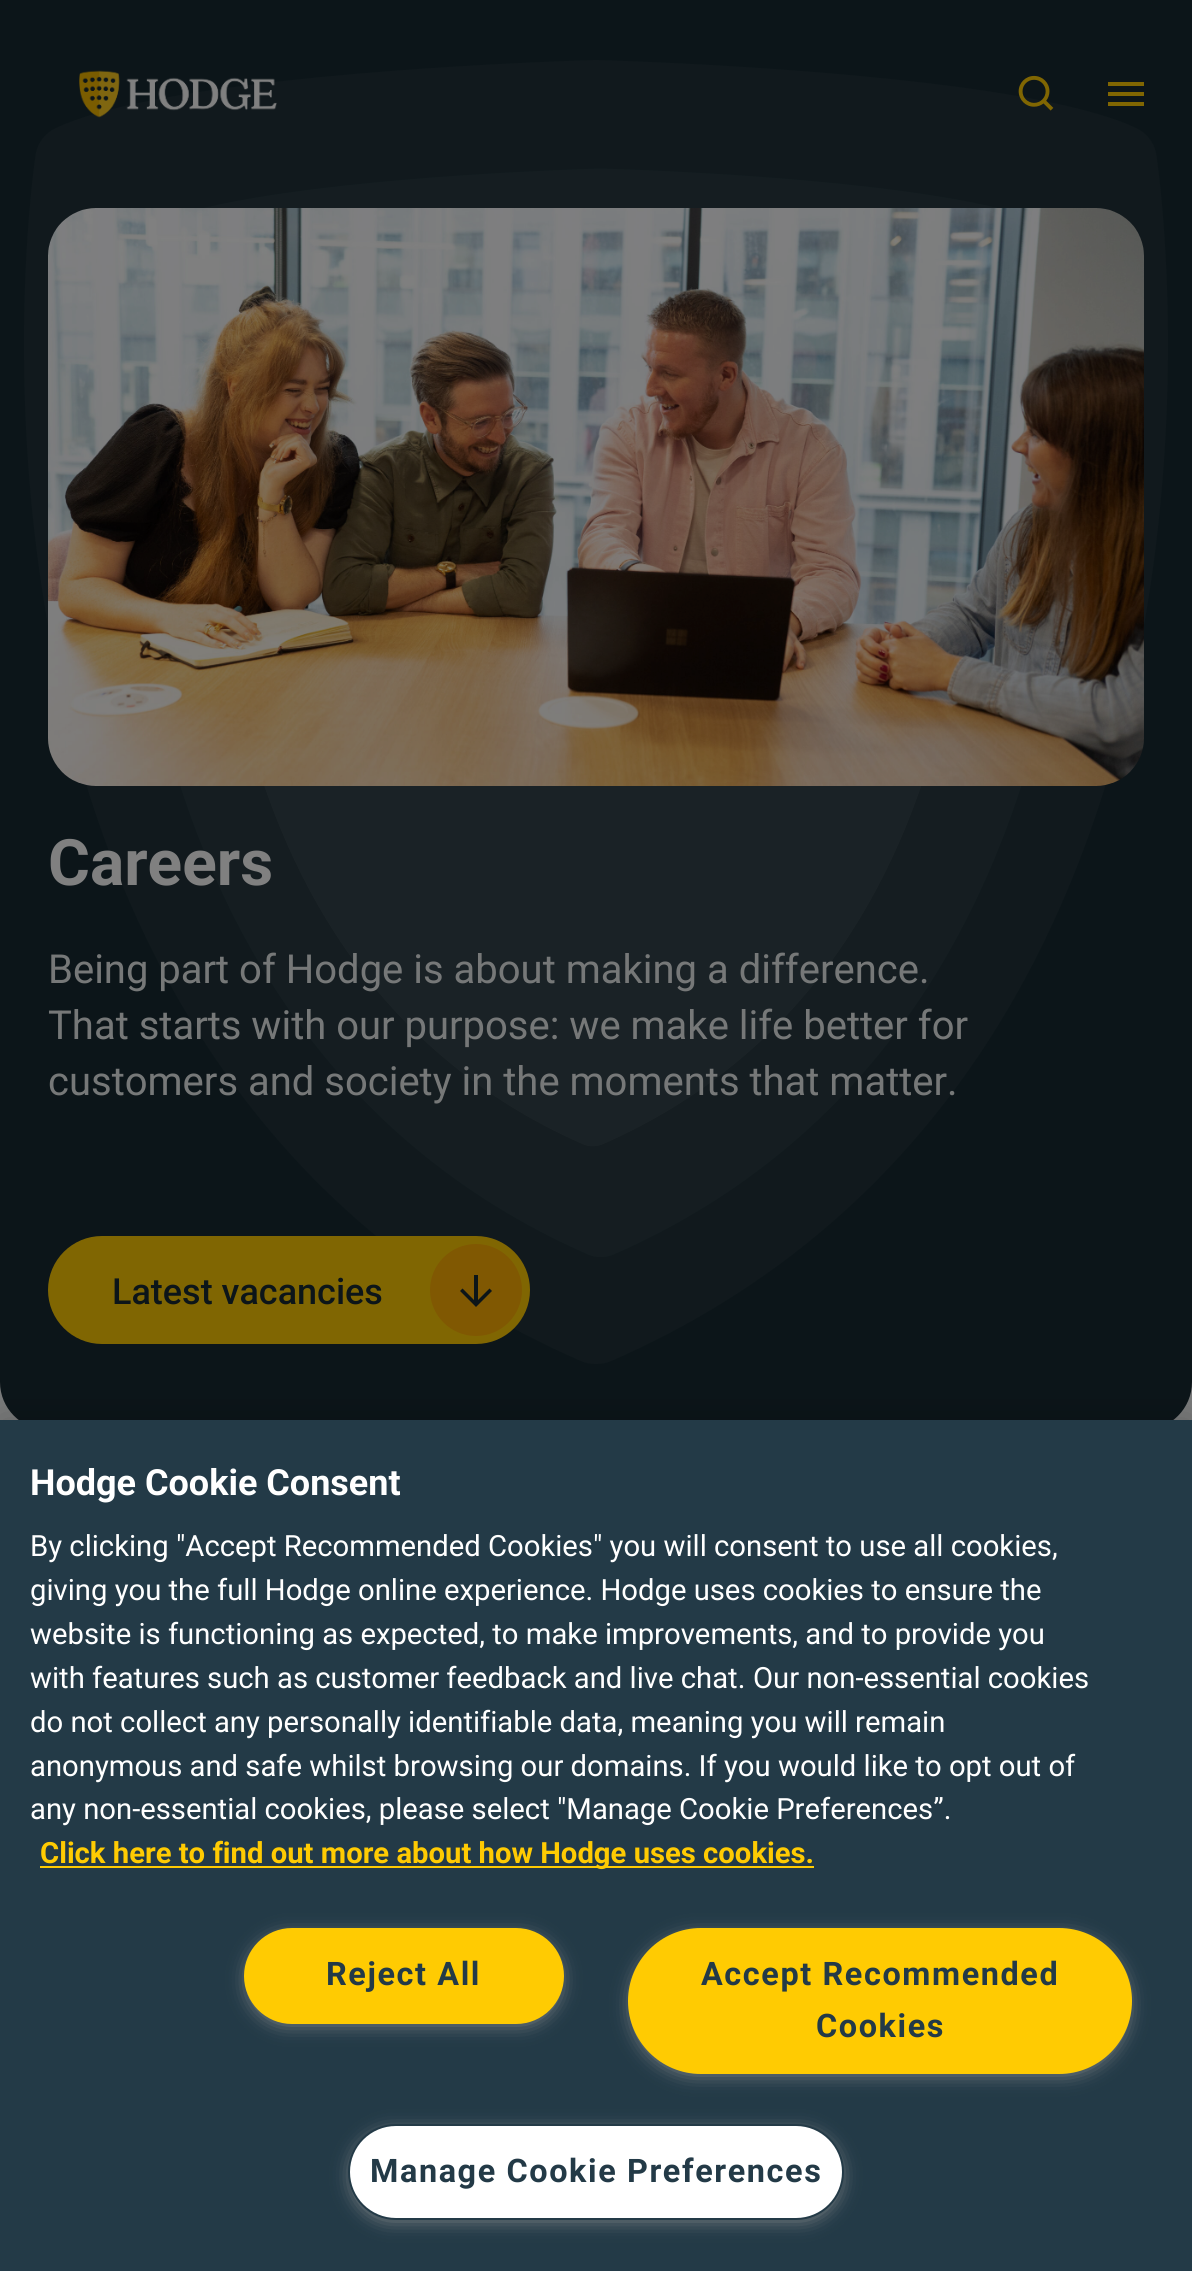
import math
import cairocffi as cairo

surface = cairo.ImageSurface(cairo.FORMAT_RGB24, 1192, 2271)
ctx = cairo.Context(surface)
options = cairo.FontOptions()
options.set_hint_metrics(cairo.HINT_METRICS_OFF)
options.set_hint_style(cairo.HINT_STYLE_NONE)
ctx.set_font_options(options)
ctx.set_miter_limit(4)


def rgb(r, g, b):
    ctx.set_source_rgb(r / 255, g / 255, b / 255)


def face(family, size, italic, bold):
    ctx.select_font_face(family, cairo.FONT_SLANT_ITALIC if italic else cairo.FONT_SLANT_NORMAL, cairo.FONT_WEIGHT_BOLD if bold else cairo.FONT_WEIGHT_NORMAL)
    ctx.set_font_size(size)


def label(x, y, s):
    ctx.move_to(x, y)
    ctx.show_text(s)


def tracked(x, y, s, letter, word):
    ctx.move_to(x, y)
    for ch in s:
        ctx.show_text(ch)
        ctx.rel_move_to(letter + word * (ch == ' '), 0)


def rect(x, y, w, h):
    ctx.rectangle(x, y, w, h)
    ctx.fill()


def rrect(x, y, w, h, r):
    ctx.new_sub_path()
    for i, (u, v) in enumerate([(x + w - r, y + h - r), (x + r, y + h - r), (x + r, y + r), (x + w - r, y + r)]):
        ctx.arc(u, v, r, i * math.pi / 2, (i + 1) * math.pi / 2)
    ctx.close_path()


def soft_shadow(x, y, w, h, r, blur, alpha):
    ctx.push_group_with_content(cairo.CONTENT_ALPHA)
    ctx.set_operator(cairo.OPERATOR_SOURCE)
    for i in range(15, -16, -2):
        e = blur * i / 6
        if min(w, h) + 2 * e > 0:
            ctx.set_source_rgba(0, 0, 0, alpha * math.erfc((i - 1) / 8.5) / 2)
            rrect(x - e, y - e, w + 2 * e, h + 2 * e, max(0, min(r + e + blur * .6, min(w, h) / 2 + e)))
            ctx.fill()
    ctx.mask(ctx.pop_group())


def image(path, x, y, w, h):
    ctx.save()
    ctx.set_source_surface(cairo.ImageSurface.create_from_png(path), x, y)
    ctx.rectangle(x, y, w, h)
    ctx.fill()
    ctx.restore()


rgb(122, 123, 123)
ctx.paint()
rgb(12, 21, 25)
ctx.new_path()
ctx.move_to(0, 0)
ctx.line_to(1192, 0)
ctx.line_to(1192, 1382)
ctx.curve_to(1192, 1408.5, 1170.5, 1430, 1144, 1430)
ctx.line_to(48, 1430)
ctx.curve_to(21.5, 1430, 0, 1408.5, 0, 1382)
ctx.close_path()
ctx.fill()
image('image2.png', 24, 60, 1144, 1304)
image('image0.png', 79, 70, 198, 48)
image('image1.png', 1018, 75, 36, 36)
rgb(128, 102, 2)
rect(1108, 92, 36, 4)
rect(1108, 82, 36, 4)
rect(1108, 102, 36, 4)
image('image3.png', 48, 208, 1096, 578)
face('Roboto', 64, 0, 1)
rgb(128, 128, 128)
label(48, 885, 'Careers')
face('Roboto', 40, 0, 0)
rgb(118, 120, 120)
label(48, 983, 'Being part of Hodge is about making a difference.')
label(48, 1039, 'That starts with our purpose: we make life better for')
label(48, 1095, 'customers and society in the moments that matter.')
rgb(128, 102, 2)
rrect(48, 1236, 482, 108, 54)
ctx.fill()
face('Roboto Medium', 36, 0, 0)
rgb(12, 21, 25)
label(112, 1304, 'Latest vacancies')
rgb(128, 88, 2)
ctx.new_path()
ctx.arc(476, 1290, 46, 0, 2 * math.pi)
ctx.fill()
rgb(12, 21, 25)
ctx.new_path()
ctx.move_to(492, 1291)
ctx.line_to(489.5, 1288.5)
ctx.line_to(478, 1300)
ctx.line_to(478, 1275)
ctx.line_to(474, 1275)
ctx.line_to(474, 1300)
ctx.line_to(462.5, 1288.5)
ctx.line_to(460, 1291)
ctx.line_to(476, 1307)
ctx.close_path()
ctx.fill()
rgb(0, 0, 0)
soft_shadow(0, 1420, 1192, 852, 0, 18, 0.2)
rgb(35, 58, 71)
rect(0, 1420, 1192, 851)
face('Roboto', 36, 0, 1)
rgb(255, 255, 255)
label(30, 1495, 'Hodge Cookie Consent')
face('Roboto', 29.25, 0, 0)
label(30, 1556, 'By clicking "Accept Recommended Cookies" you will consent to use all cookies,')
label(30, 1600, 'giving you the full Hodge online experience. Hodge uses cookies to ensure the')
label(30, 1644, 'website is functioning as expected, to make improvements, and to provide you')
label(30, 1688, 'with features such as customer feedback and live chat.')
label(753, 1688, 'Our non-essential cookies')
label(30, 1732, 'do not collect any personally identifiable data, meaning you will remain')
label(30, 1776, 'anonymous and safe whilst browsing our domains. If you would like to opt out of')
label(30, 1819, 'any non-essential cookies, please select "Manage Cookie Preferences”.')
rgb(255, 203, 2)
rect(40, 1866, 774, 2)
face('Roboto', 29.25, 0, 1)
label(40, 1863, 'Click here to find out more about how Hodge uses cookies.')
rgb(153, 153, 153)
soft_shadow(250, 1938, 308, 84, 42, 10, 1)
rgb(255, 203, 2)
rrect(245, 1929, 318, 94, 47)
ctx.fill_preserve()
ctx.stroke()
face('Roboto', 32.4, 0, 1)
rgb(35, 58, 71)
tracked(326, 1985, 'Reject All', 1.6, 0)
rgb(153, 153, 153)
soft_shadow(634, 1938, 492, 134, 67, 10, 1)
rgb(255, 203, 2)
rrect(629, 1929, 502, 144, 72)
ctx.fill_preserve()
ctx.stroke()
rgb(35, 58, 71)
tracked(701, 1985, 'Accept Recommended', 1.6, 0)
tracked(816, 2037, 'Cookies', 1.6, 0)
rgb(153, 153, 153)
soft_shadow(354, 2134, 484, 84, 42, 10, 1)
rgb(255, 255, 255)
rrect(349, 2125, 494, 94, 47)
ctx.fill_preserve()
rgb(35, 58, 71)
ctx.stroke()
tracked(370, 2182, 'Manage Cookie Preferences', 1.6, 0)
surface.write_to_png('render.png')
